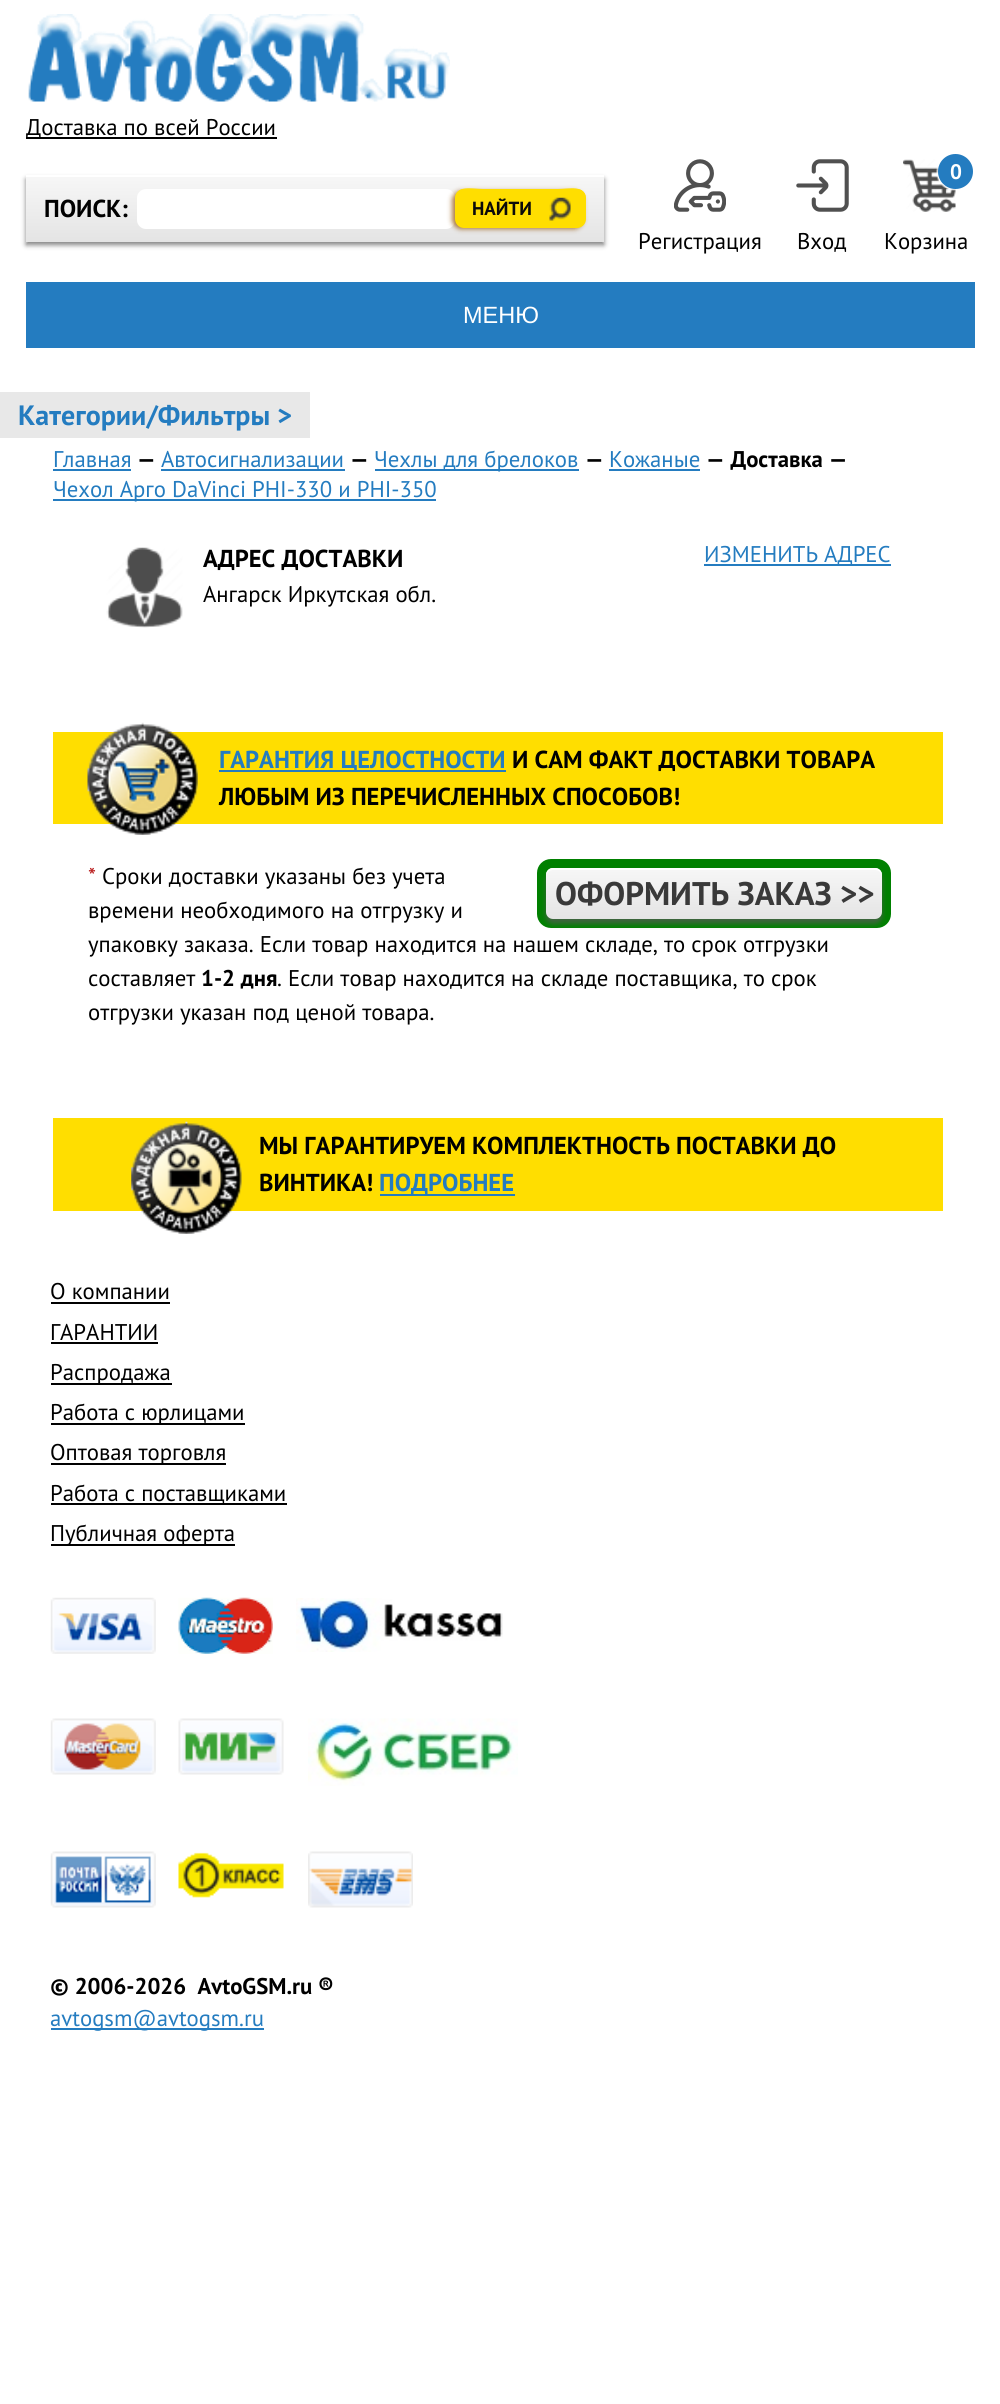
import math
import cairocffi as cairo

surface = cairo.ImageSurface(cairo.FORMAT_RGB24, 1000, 2404)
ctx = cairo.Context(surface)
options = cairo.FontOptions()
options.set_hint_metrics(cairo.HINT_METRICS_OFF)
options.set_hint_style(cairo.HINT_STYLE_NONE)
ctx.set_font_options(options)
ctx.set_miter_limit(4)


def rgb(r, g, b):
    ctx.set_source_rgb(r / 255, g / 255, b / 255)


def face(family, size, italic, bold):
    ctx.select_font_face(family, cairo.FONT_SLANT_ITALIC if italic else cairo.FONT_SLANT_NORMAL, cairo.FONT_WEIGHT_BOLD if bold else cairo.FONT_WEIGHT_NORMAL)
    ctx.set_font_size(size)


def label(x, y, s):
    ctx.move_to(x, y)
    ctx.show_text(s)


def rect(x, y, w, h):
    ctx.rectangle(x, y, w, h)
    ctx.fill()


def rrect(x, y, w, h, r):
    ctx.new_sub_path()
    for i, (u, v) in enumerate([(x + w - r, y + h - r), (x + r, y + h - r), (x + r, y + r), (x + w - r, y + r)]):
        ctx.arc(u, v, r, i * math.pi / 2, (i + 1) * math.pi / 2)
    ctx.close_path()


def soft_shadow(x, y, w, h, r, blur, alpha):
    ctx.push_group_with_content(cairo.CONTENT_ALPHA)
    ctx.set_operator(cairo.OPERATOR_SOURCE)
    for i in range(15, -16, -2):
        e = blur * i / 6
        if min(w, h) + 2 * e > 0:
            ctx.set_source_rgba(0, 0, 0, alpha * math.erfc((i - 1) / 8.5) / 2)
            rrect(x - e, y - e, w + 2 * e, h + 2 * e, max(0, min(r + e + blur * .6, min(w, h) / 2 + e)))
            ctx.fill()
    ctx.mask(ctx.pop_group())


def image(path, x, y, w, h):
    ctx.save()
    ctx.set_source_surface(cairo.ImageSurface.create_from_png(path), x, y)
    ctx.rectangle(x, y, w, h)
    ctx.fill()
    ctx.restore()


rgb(255, 255, 255)
ctx.paint()
image('image0.png', 28, 14, 422, 88)
rgb(0, 0, 0)
rect(26, 137, 251, 2)
face('PT Sans', 22.75, 0, 0)
label(26, 135, 'Доставка по всей России')
rgb(87, 87, 87)
soft_shadow(26, 179, 578, 66, 0, 2.5, 0.75)
gradient = cairo.LinearGradient(315, 175, 315, 242)
gradient.add_color_stop_rgba(0, 0.969, 0.969, 0.969, 1)
gradient.add_color_stop_rgba(1, 0.894, 0.894, 0.894, 1)
ctx.set_source(gradient)
rect(26, 177, 578, 65)
rgb(255, 255, 255)
rect(26, 175, 578, 2)
face('PT Sans', 24.5, 0, 1)
rgb(0, 0, 0)
label(44, 217, 'ПОИСК:')
rgb(255, 255, 255)
rrect(137, 189, 318, 40, 9)
ctx.fill()
rgb(145, 79, 1)
soft_shadow(452, 191, 131, 38, 9, 2.5, 0.75)
rgb(255, 222, 0)
rrect(455, 189, 131, 39, 9)
ctx.fill()
image('image1.png', 549, 197, 22, 24)
ctx.new_path()
ctx.move_to(464, 191)
ctx.line_to(578, 191)
ctx.curve_to(582, 191, 586, 195, 586, 200)
ctx.curve_to(586, 184, 569, 189, 558, 189)
ctx.line_to(483, 189)
ctx.curve_to(472, 189, 455, 184, 455, 200)
ctx.curve_to(455, 195, 459, 191, 464, 191)
ctx.close_path()
ctx.fill()
face('PT Sans', 19, 0, 1)
rgb(10, 10, 10)
label(472, 215, 'НАЙТИ')
image('image2.png', 674, 159, 52, 53)
face('PT Sans', 22.75, 0, 0)
rgb(0, 0, 0)
label(638, 249, 'Регистрация')
image('image3.png', 796, 159, 53, 53)
label(797, 249, 'Вход')
image('image4.png', 903, 159, 53, 53)
rgb(36, 124, 192)
ctx.arc(955.5, 171.5, 17.5, 0, 2 * math.pi)
ctx.fill()
face('PT Sans', 21, 0, 1)
rgb(255, 255, 255)
label(950, 179, '0')
face('PT Sans', 22.75, 0, 0)
rgb(0, 0, 0)
label(884, 249, 'Корзина')
rgb(36, 124, 192)
rect(26, 282, 949, 66)
face('Liberation Sans', 23.5, 0, 0)
rgb(255, 255, 255)
label(463, 323, 'МЕНЮ')
rgb(232, 232, 232)
rect(0, 392, 310, 46)
face('PT Sans', 28, 0, 1)
rgb(36, 124, 192)
label(18, 425, 'Категории/Фильтры >')
face('PT Sans', 22.75, 0, 0)
label(53, 467, 'Главная')
rect(53, 469, 78, 2)
face('PT Sans', 22.75, 0, 1)
rgb(0, 0, 0)
label(137, 467, '—')
rgb(36, 124, 192)
rect(161, 469, 184, 2)
face('PT Sans', 22.75, 0, 0)
label(161, 467, 'Автосигнализации')
face('PT Sans', 22.75, 0, 1)
rgb(0, 0, 0)
label(350, 467, '—')
rgb(36, 124, 192)
rect(375, 469, 204, 2)
face('PT Sans', 22.75, 0, 0)
label(374, 467, 'Чехлы для брелоков')
face('PT Sans', 22.75, 0, 1)
rgb(0, 0, 0)
label(585, 467, '—')
face('PT Sans', 22.75, 0, 0)
rgb(36, 124, 192)
label(609, 467, 'Кожаные')
rect(609, 469, 91, 2)
face('PT Sans', 22.75, 0, 1)
rgb(0, 0, 0)
label(706, 467, '— Доставка —')
rgb(36, 124, 192)
rect(53, 499, 383, 2)
face('PT Sans', 22.75, 0, 0)
label(53, 497, 'Чехол Арго DaVinci PHI-330 и PHI-350')
image('image5.png', 106, 547, 77, 81)
face('PT Sans', 24.5, 0, 1)
rgb(0, 0, 0)
label(203, 567, 'АДРЕС ДОСТАВКИ')
face('PT Sans', 22.75, 0, 0)
label(203, 602, 'Ангарск Иркутская обл.')
rgb(36, 124, 192)
rect(704, 564, 187, 2)
label(704, 562, 'ИЗМЕНИТЬ АДРЕС')
rgb(255, 222, 0)
rect(53, 732, 890, 92)
image('image6.png', 87, 722, 111, 113)
rgb(36, 124, 192)
rect(219, 770, 287, 2)
face('PT Sans', 24.5, 0, 1)
label(219, 768, 'ГАРАНТИЯ ЦЕЛОСТНОСТИ')
rgb(0, 0, 0)
label(512, 768, 'И САМ ФАКТ ДОСТАВКИ ТОВАРА')
label(219, 805, 'ЛЮБЫМ ИЗ ПЕРЕЧИСЛЕННЫХ СПОСОБОВ!')
face('PT Sans', 22.75, 0, 0)
rgb(181, 16, 16)
label(88, 884, '*')
rgb(0, 0, 0)
label(102, 884, 'Сроки доставки указаны без учета')
label(88, 918, 'времени необходимого на отгрузку и')
label(88, 952, 'упаковку заказа. Если товар находится на нашем складе, то срок отгрузки')
label(88, 986, 'составляет')
face('PT Sans', 22.75, 0, 1)
label(201, 986, '1-2 дня')
face('PT Sans', 22.75, 0, 0)
label(277, 986, '. Если товар находится на складе поставщика, то срок')
label(88, 1020, 'отгрузки указан под ценой товара.')
rgb(0, 128, 0)
rrect(537, 859, 354, 69, 14)
ctx.fill()
rgb(87, 87, 87)
soft_shadow(546, 873, 336, 51, 7, 2.5, 0.7)
gradient = cairo.LinearGradient(714, 868, 714, 919)
gradient.add_color_stop_rgba(0, 0.969, 0.969, 0.969, 1)
gradient.add_color_stop_rgba(1, 0.894, 0.894, 0.894, 1)
ctx.set_source(gradient)
rrect(546, 868, 336, 51, 7)
ctx.fill()
rgb(255, 255, 255)
ctx.new_path()
ctx.move_to(553, 870)
ctx.line_to(875, 870)
ctx.curve_to(879, 870, 882, 873, 882, 877)
ctx.line_to(882, 875)
ctx.curve_to(882, 871, 879, 868, 875, 868)
ctx.line_to(553, 868)
ctx.curve_to(549, 868, 546, 871, 546, 875)
ctx.line_to(546, 877)
ctx.curve_to(546, 873, 549, 870, 553, 870)
ctx.close_path()
ctx.fill()
face('PT Sans', 32.75, 0, 1)
rgb(57, 57, 57)
label(555, 905, 'ОФОРМИТЬ ЗАКАЗ >>')
rgb(255, 222, 0)
rect(53, 1118, 890, 93)
image('image7.png', 131, 1121, 111, 113)
face('PT Sans', 24.5, 0, 1)
rgb(0, 0, 0)
label(259, 1154, 'МЫ ГАРАНТИРУЕМ КОМПЛЕКТНОСТЬ ПОСТАВКИ ДО')
label(259, 1191, 'ВИНТИКА!')
rgb(36, 124, 192)
rect(380, 1194, 135, 2)
label(379, 1191, 'ПОДРОБНЕЕ')
face('PT Sans', 22.75, 0, 0)
rgb(0, 0, 0)
label(50, 1299, 'О компании')
rect(51, 1302, 119, 2)
label(50, 1340, 'ГАРАНТИИ')
rect(51, 1342, 107, 2)
rect(51, 1383, 121, 2)
label(50, 1380, 'Распродажа')
rect(51, 1423, 194, 2)
label(50, 1420, 'Работа с юрлицами')
rect(51, 1463, 175, 2)
label(50, 1460, 'Оптовая торговля')
rect(51, 1503, 236, 2)
label(50, 1501, 'Работа с поставщиками')
rect(51, 1544, 184, 2)
label(50, 1541, 'Публичная оферта')
image('image8.png', 50, 1597, 106, 57)
image('image9.png', 178, 1597, 95, 57)
image('image10.png', 296, 1598, 207, 54)
image('image11.png', 50, 1718, 106, 57)
image('image12.png', 178, 1718, 106, 57)
image('image13.png', 308, 1718, 210, 68)
image('image14.png', 50, 1851, 106, 57)
image('image15.png', 178, 1852, 106, 46)
image('image16.png', 308, 1851, 105, 57)
face('PT Sans', 22.75, 0, 1)
label(50, 1994, '© 2006-2026  AvtoGSM.ru ®')
rgb(36, 124, 192)
rect(51, 2028, 213, 2)
face('PT Sans', 22.75, 0, 0)
label(50, 2026, 'avtogsm@avtogsm.ru')
surface.write_to_png('render.png')
